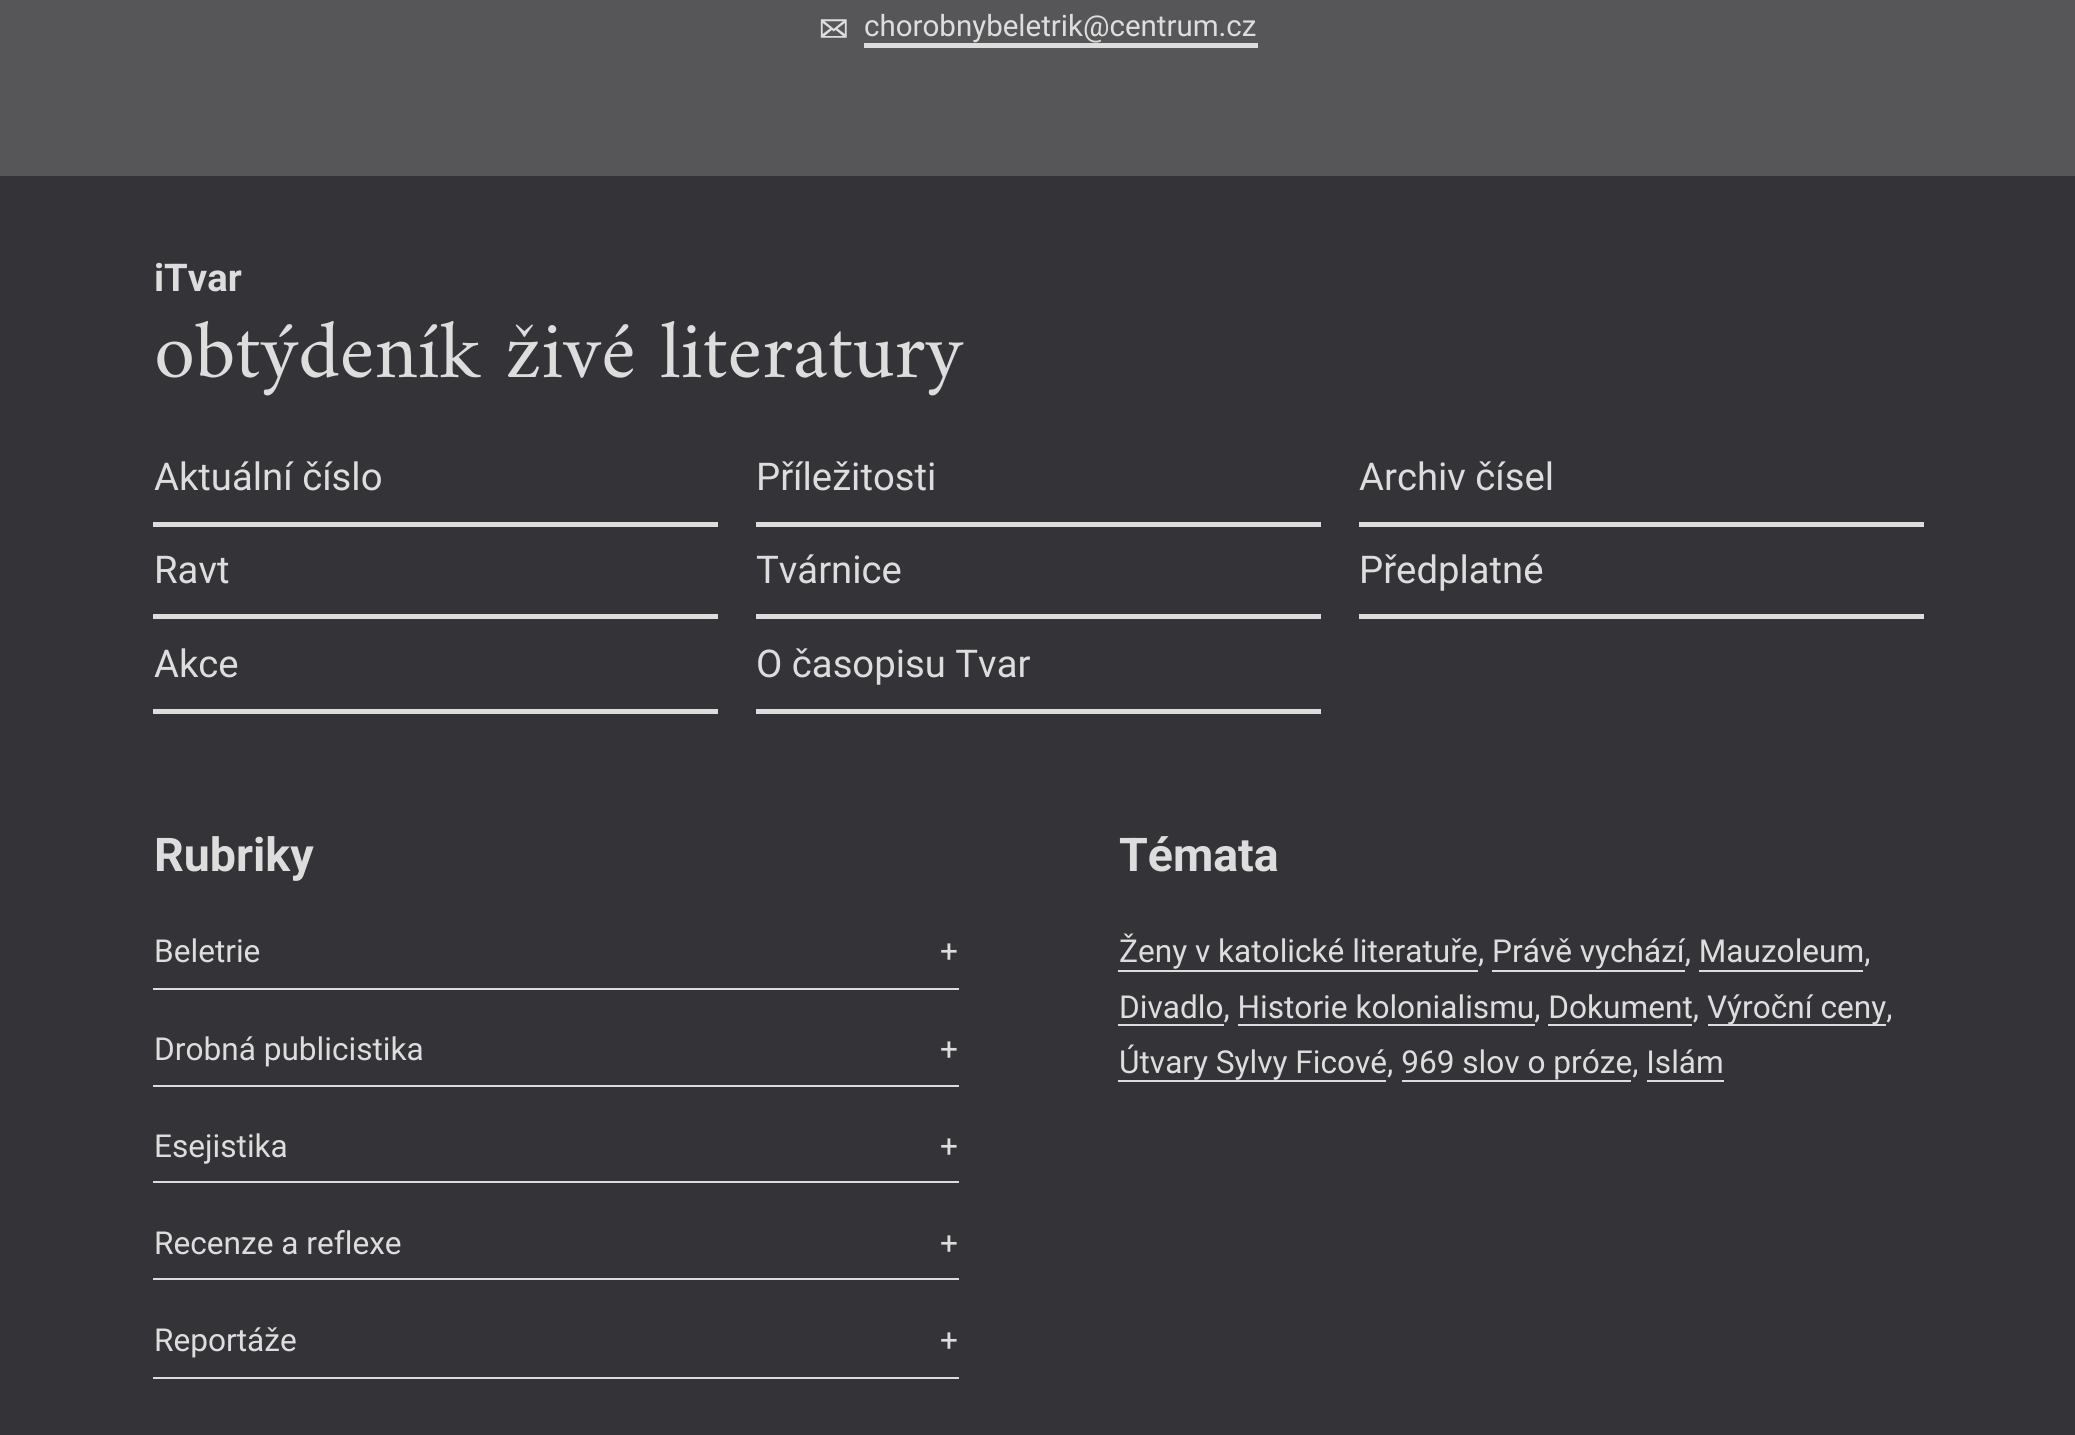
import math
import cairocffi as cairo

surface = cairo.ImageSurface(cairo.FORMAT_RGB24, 2075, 1435)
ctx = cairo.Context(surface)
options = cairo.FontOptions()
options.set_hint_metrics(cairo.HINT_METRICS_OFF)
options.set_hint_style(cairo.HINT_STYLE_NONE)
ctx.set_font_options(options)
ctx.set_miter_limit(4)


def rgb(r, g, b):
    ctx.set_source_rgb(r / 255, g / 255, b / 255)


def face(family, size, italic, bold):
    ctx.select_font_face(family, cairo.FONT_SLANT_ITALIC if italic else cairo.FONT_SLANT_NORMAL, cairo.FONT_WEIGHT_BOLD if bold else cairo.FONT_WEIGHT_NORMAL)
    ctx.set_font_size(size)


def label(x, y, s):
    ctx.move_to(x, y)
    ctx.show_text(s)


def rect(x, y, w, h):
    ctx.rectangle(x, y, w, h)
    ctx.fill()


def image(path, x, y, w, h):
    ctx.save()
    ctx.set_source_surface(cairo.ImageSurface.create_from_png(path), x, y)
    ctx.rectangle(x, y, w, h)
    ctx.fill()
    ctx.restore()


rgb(86, 86, 89)
ctx.paint()
image('image0.png', 820, 19, 27, 19)
face('Roboto', 29.5, 0, 0)
rgb(221, 221, 221)
label(864, 36, 'chorobnybeletrik@centrum.cz')
rect(864, 43, 394, 5)
rgb(52, 52, 56)
rect(0, 176, 2075, 1259)
face('Roboto', 38.25, 0, 1)
rgb(221, 221, 221)
label(154, 291, 'iTvar')
face('Amiri', 82.75, 0, 0)
label(154, 377, 'obtýdeník živé literatury')
rect(153, 522, 565, 5)
face('Roboto', 38.25, 0, 0)
label(154, 490, 'Aktuální číslo')
rect(756, 522, 565, 5)
label(756, 490, 'Příležitosti')
rect(1359, 522, 565, 5)
label(1359, 490, 'Archiv čísel')
rect(153, 614, 565, 5)
label(154, 583, 'Ravt')
rect(756, 614, 565, 5)
label(756, 583, 'Tvárnice')
rect(1359, 614, 565, 5)
label(1359, 583, 'Předplatné')
rect(153, 709, 565, 5)
label(154, 677, 'Akce')
rect(756, 709, 565, 5)
label(756, 677, 'O časopisu Tvar')
face('Roboto', 46.5, 0, 1)
label(154, 871, 'Rubriky')
rect(153, 988, 806, 2)
face('Roboto', 31.6, 0, 0)
label(154, 962, 'Beletrie')
label(940, 962, '+')
rect(153, 1085, 806, 2)
label(154, 1060, 'Drobná publicistika')
label(940, 1060, '+')
rect(153, 1181, 806, 2)
label(154, 1157, 'Esejistika')
label(940, 1157, '+')
rect(153, 1278, 806, 2)
label(154, 1254, 'Recenze a reflexe')
label(940, 1254, '+')
rect(153, 1377, 806, 2)
label(154, 1351, 'Reportáže')
label(940, 1351, '+')
face('Roboto', 46.5, 0, 1)
label(1119, 871, 'Témata')
face('Roboto', 31.6, 0, 0)
label(1119, 962, 'Ženy v katolické literatuře')
rect(1118, 970, 360, 2)
label(1478, 962, ', Právě vychází, Mauzoleum,')
rect(1492, 970, 193, 2)
rect(1699, 970, 164, 2)
label(1119, 1018, 'Divadlo, Historie kolonialismu, Dokument,')
rect(1118, 1024, 106, 2)
rect(1708, 1024, 178, 2)
label(1707, 1018, 'Výroční ceny,')
rect(1238, 1024, 297, 2)
rect(1548, 1024, 144, 2)
label(1119, 1073, 'Útvary Sylvy Ficové, 969 slov o próze, Islám')
rect(1118, 1080, 268, 2)
rect(1402, 1080, 229, 2)
rect(1647, 1080, 77, 2)
surface.write_to_png('render.png')
